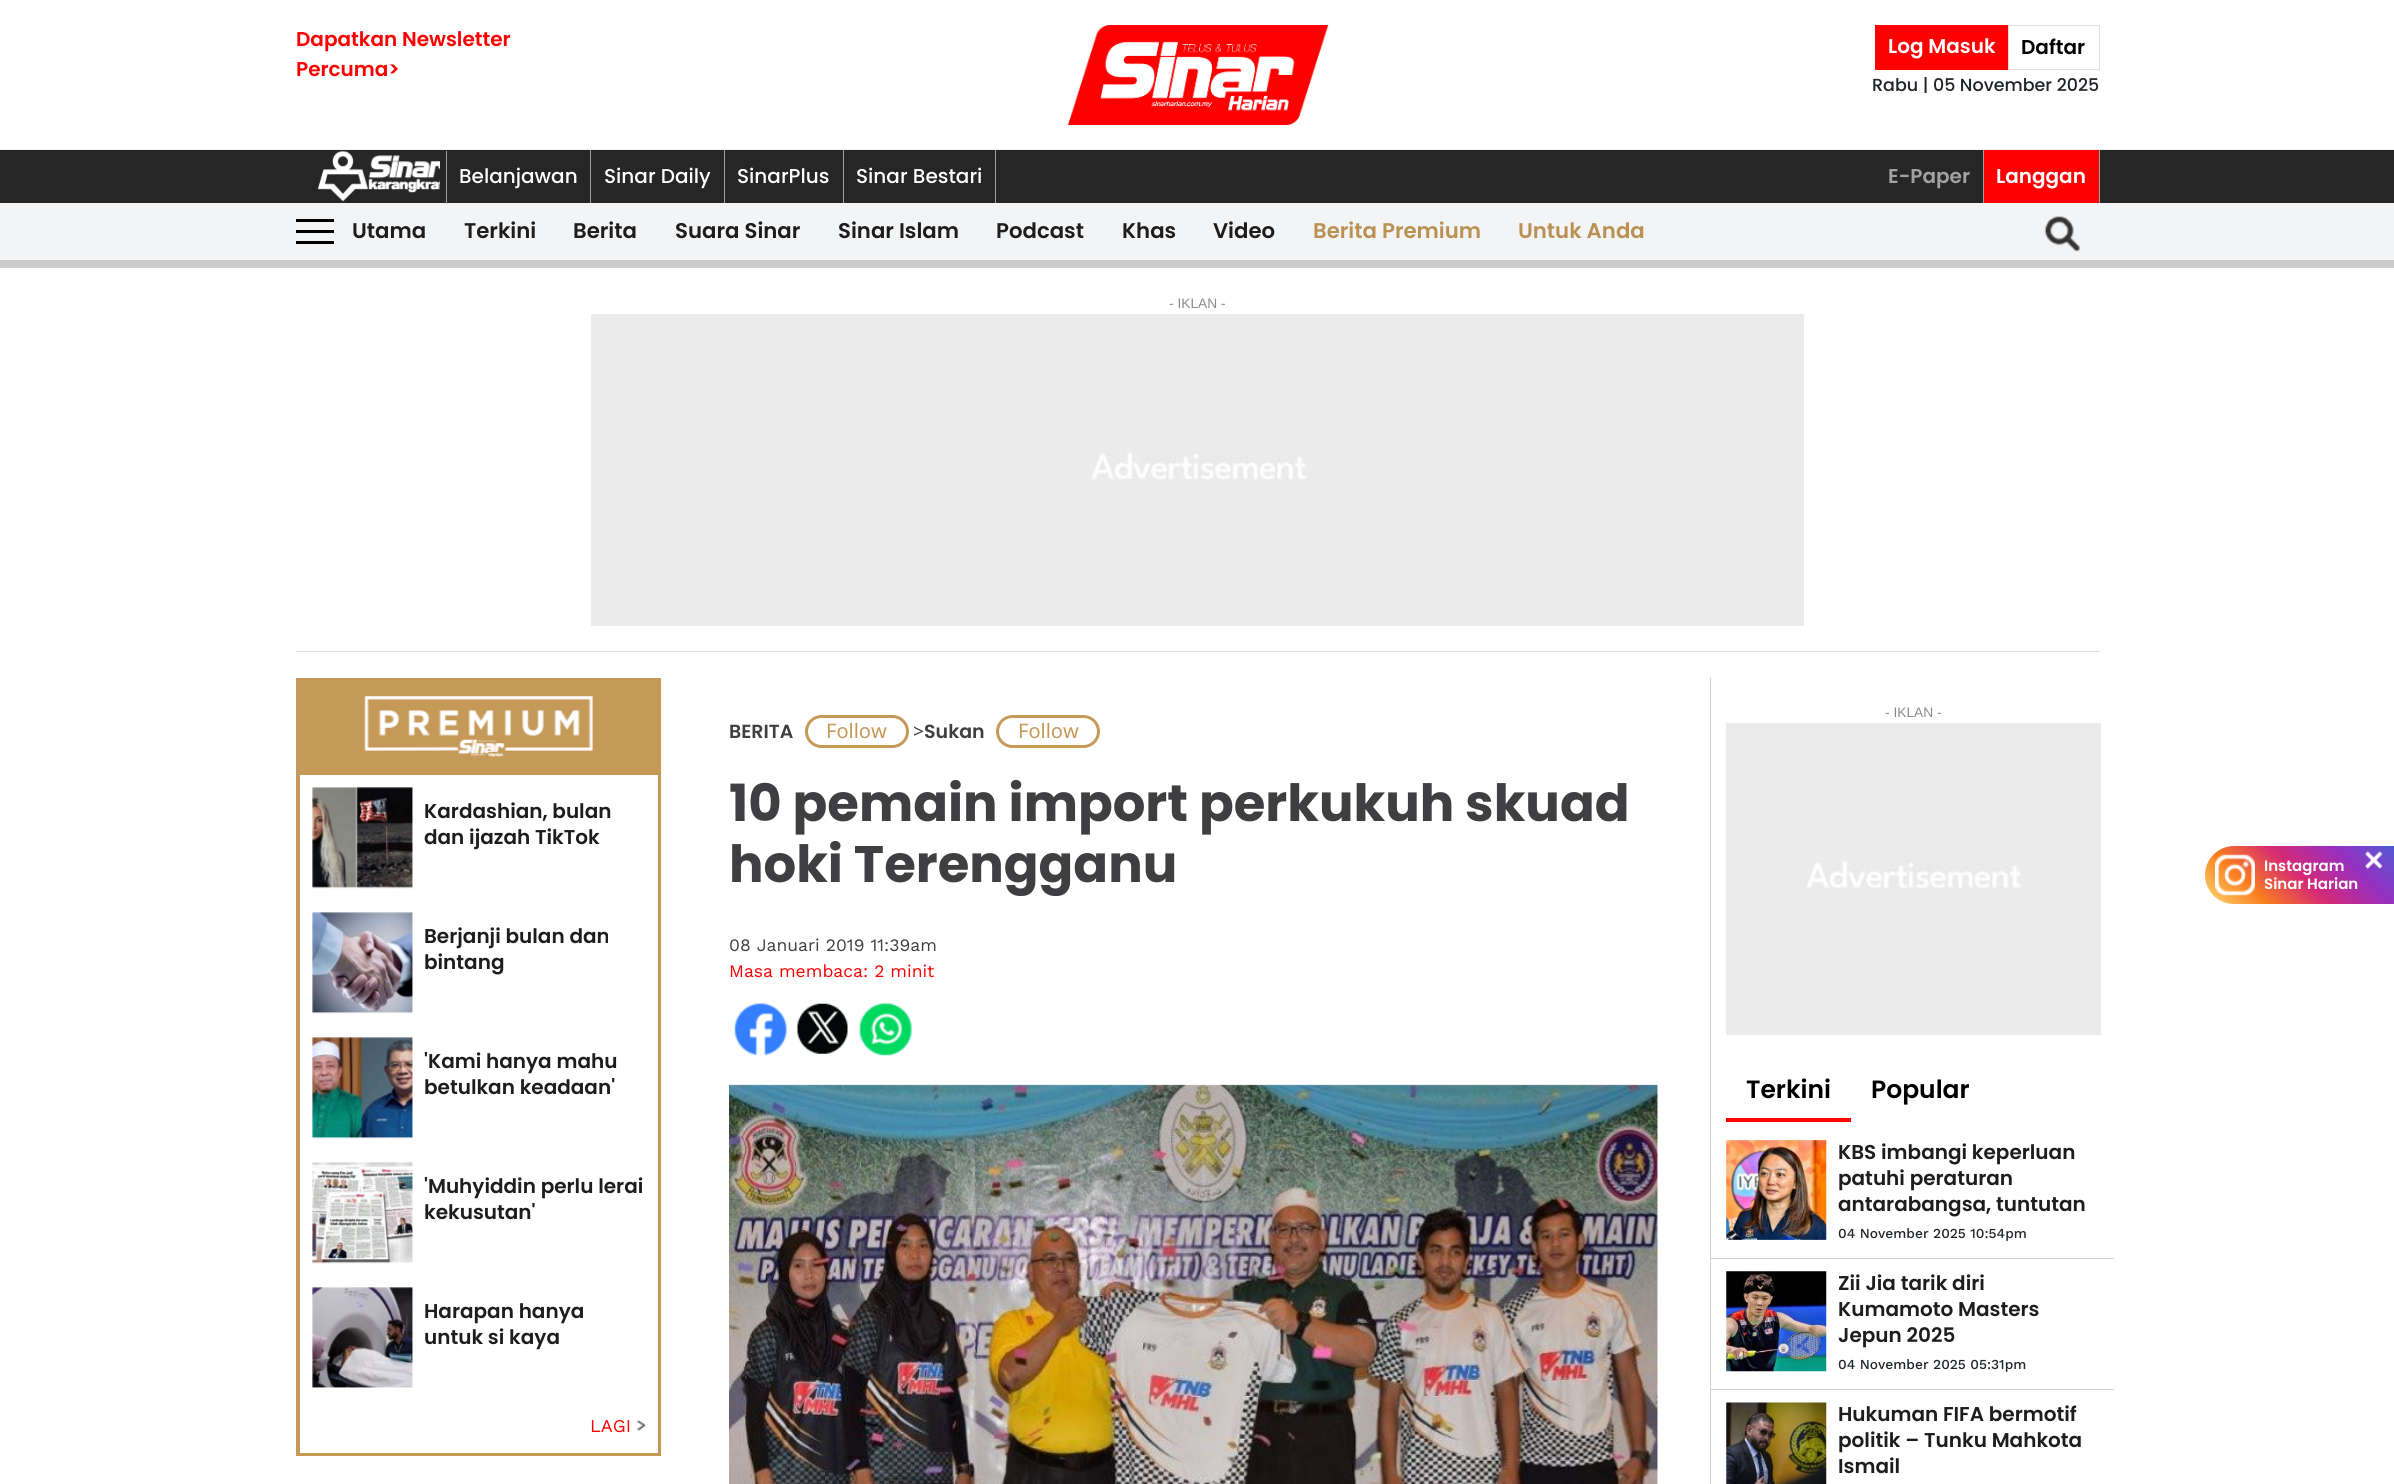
import math
import cairocffi as cairo

surface = cairo.ImageSurface(cairo.FORMAT_RGB24, 2394, 1484)
ctx = cairo.Context(surface)
options = cairo.FontOptions()
options.set_hint_metrics(cairo.HINT_METRICS_OFF)
options.set_hint_style(cairo.HINT_STYLE_NONE)
ctx.set_font_options(options)
ctx.set_miter_limit(4)


def rgb(r, g, b):
    ctx.set_source_rgb(r / 255, g / 255, b / 255)


def face(family, size, italic, bold):
    ctx.select_font_face(family, cairo.FONT_SLANT_ITALIC if italic else cairo.FONT_SLANT_NORMAL, cairo.FONT_WEIGHT_BOLD if bold else cairo.FONT_WEIGHT_NORMAL)
    ctx.set_font_size(size)


def label(x, y, s):
    ctx.move_to(x, y)
    ctx.show_text(s)


def rect(x, y, w, h):
    ctx.rectangle(x, y, w, h)
    ctx.fill()


def rrect(x, y, w, h, r):
    ctx.new_sub_path()
    for i, (u, v) in enumerate([(x + w - r, y + h - r), (x + r, y + h - r), (x + r, y + r), (x + w - r, y + r)]):
        ctx.arc(u, v, r, i * math.pi / 2, (i + 1) * math.pi / 2)
    ctx.close_path()


def soft_shadow(x, y, w, h, r, blur, alpha):
    ctx.push_group_with_content(cairo.CONTENT_ALPHA)
    ctx.set_operator(cairo.OPERATOR_SOURCE)
    for i in range(15, -16, -2):
        e = blur * i / 6
        if min(w, h) + 2 * e > 0:
            ctx.set_source_rgba(0, 0, 0, alpha * math.erfc((i - 1) / 8.5) / 2)
            rrect(x - e, y - e, w + 2 * e, h + 2 * e, max(0, min(r + e + blur * .6, min(w, h) / 2 + e)))
            ctx.fill()
    ctx.mask(ctx.pop_group())


def image(path, x, y, w, h):
    ctx.save()
    ctx.set_source_surface(cairo.ImageSurface.create_from_png(path), x, y)
    ctx.rectangle(x, y, w, h)
    ctx.fill()
    ctx.restore()


rgb(255, 255, 255)
ctx.paint()
rgb(243, 243, 243)
rect(0, 149, 2394, 1)
face('Poppins SemiBold', 20, 0, 0)
rgb(255, 0, 0)
label(296, 46, 'Dapatkan Newsletter')
label(296, 76, 'Percuma>')
image('image0.png', 1068, 25, 261, 100)
rect(1875, 25, 133, 45)
rgb(255, 255, 255)
label(1888, 53, 'Log Masuk')
ctx.rectangle(2008.5, 25.5, 91, 44)
rgb(224, 224, 224)
ctx.set_line_width(1)
ctx.stroke()
rgb(0, 0, 0)
label(2021, 54, 'Daftar')
face('Poppins Medium', 17.5, 0, 0)
rgb(33, 37, 41)
label(1872, 91, 'Rabu | 05 November 2025')
rgb(0, 0, 0)
soft_shadow(0, 206, 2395, 58, 0, 4, 0.17)
rgb(38, 38, 38)
rect(0, 150, 2394, 53)
rgb(243, 244, 246)
rect(0, 203, 2394, 57)
rgb(161, 161, 161)
rect(446, 151, 1, 53)
image('image1.png', 317, 151, 123, 51)
rect(590, 150, 1, 53)
face('Poppins Medium', 20, 0, 0)
rgb(255, 255, 255)
label(459, 183, 'Belanjawan')
rgb(161, 161, 161)
rect(724, 150, 1, 53)
rgb(255, 255, 255)
label(604, 183, 'Sinar Daily')
rgb(161, 161, 161)
rect(843, 150, 1, 53)
rgb(255, 255, 255)
label(737, 183, 'SinarPlus')
rgb(161, 161, 161)
rect(995, 150, 1, 53)
rgb(255, 255, 255)
label(856, 183, 'Sinar Bestari')
rgb(161, 161, 161)
rect(1983, 150, 1, 53)
face('Poppins SemiBold', 20, 0, 0)
label(1888, 183, 'E-Paper')
rgb(255, 0, 0)
rect(1984, 150, 115, 53)
rgb(161, 161, 161)
rect(2099, 150, 1, 53)
rgb(255, 255, 255)
label(1996, 183, 'Langgan')
rgb(0, 0, 0)
rect(296, 219, 38, 3)
rect(296, 241, 38, 3)
rect(296, 230, 38, 3)
face('Poppins SemiBold', 21.25, 0, 0)
rgb(29, 29, 29)
label(352, 238, 'Utama')
label(464, 238, 'Terkini')
label(573, 238, 'Berita')
label(675, 238, 'Suara Sinar')
label(838, 238, 'Sinar Islam')
label(996, 238, 'Podcast')
label(1122, 238, 'Khas')
label(1213, 238, 'Video')
rgb(187, 145, 83)
label(1313, 238, 'Berita Premium')
label(1518, 238, 'Untuk Anda')
image('image2.png', 2044, 216, 36, 36)
rgb(204, 204, 204)
rect(0, 260, 2394, 8)
face('Liberation Sans', 13.75, 0, 0)
rgb(139, 139, 139)
label(1169, 308, '- IKLAN -')
rgb(222, 226, 230)
rect(296, 651, 1804, 1)
rgb(235, 235, 235)
rect(591, 314, 1213, 312)
image('image3.png', 1091, 452, 216, 28)
rgb(197, 153, 88)
rect(296, 678, 365, 778)
image('image4.png', 364, 696, 229, 61)
rgb(255, 255, 255)
rect(300, 775, 358, 678)
image('image5.png', 312, 787, 101, 102)
face('Poppins SemiBold', 20, 0, 0)
rgb(29, 29, 29)
label(424, 818, 'Kardashian, bulan')
label(424, 844, 'dan ijazah TikTok')
image('image6.png', 312, 912, 101, 102)
label(424, 943, 'Berjanji bulan dan')
label(424, 969, 'bintang')
image('image7.png', 312, 1037, 101, 102)
label(424, 1068, '\'Kami hanya mahu')
label(424, 1094, 'betulkan keadaan\'')
image('image8.png', 312, 1162, 101, 102)
label(424, 1193, '\'Muhyiddin perlu lerai')
label(424, 1219, 'kekusutan\'')
image('image9.png', 312, 1287, 101, 101)
label(424, 1318, 'Harapan hanya')
label(424, 1344, 'untuk si kaya')
face('Work Sans', 18, 0, 0)
rgb(255, 0, 0)
label(590, 1432, 'LAGI')
image('image10.png', 636, 1420, 10, 11)
face('Poppins SemiBold', 19, 0, 0)
rgb(63, 63, 66)
label(729, 738, 'BERITA')
rrect(806.5, 716.5, 101, 30, 15)
rgb(197, 153, 88)
ctx.set_line_width(3)
ctx.stroke()
face('Noto Sans', 20, 0, 0)
label(826, 738, 'Follow')
face('Noto Sans', 19, 0, 0)
rgb(63, 63, 66)
label(913, 738, '>')
face('Poppins SemiBold', 19, 0, 0)
label(924, 738, 'Sukan')
rrect(997.5, 716.5, 101, 30, 15)
rgb(197, 153, 88)
ctx.stroke()
face('Noto Sans', 20, 0, 0)
label(1018, 738, 'Follow')
face('Poppins', 51.25, 0, 1)
rgb(63, 63, 66)
label(729, 821, '10 pemain import perkukuh skuad')
label(729, 882, 'hoki Terengganu')
face('Work Sans', 17.5, 0, 0)
label(729, 951, '08 Januari 2019 11:39am')
rgb(255, 0, 0)
label(729, 977, 'Masa membaca: 2 minit')
image('image11.png', 734, 1003, 53, 53)
image('image12.png', 797, 1003, 51, 51)
image('image13.png', 859, 1003, 53, 53)
image('image14.png', 729, 1084, 929, 400)
rgb(208, 208, 208)
rect(1710, 678, 1, 806)
face('Liberation Sans', 13.75, 0, 0)
rgb(139, 139, 139)
label(1885, 717, '- IKLAN -')
rgb(235, 235, 235)
rect(1726, 723, 375, 312)
image('image15.png', 1806, 861, 216, 28)
rgb(255, 0, 0)
rect(1726, 1118, 125, 4)
face('Poppins SemiBold', 25, 0, 0)
rgb(0, 0, 0)
label(1746, 1098, 'Terkini')
label(1871, 1098, 'Popular')
rgb(208, 208, 208)
rect(1711, 1258, 403, 1)
image('image16.png', 1726, 1140, 101, 100)
face('Poppins SemiBold', 20, 0, 0)
rgb(29, 29, 29)
label(1838, 1159, 'KBS imbangi keperluan')
label(1838, 1185, 'patuhi peraturan')
label(1838, 1211, 'antarabangsa, tuntutan')
face('Work Sans Medium', 13.75, 0, 0)
rgb(33, 37, 41)
label(1838, 1238, '04 November 2025 10:54pm')
rgb(208, 208, 208)
rect(1711, 1389, 403, 1)
image('image17.png', 1726, 1271, 101, 101)
face('Poppins SemiBold', 20, 0, 0)
rgb(29, 29, 29)
label(1838, 1290, 'Zii Jia tarik diri')
label(1838, 1316, 'Kumamoto Masters')
label(1838, 1342, 'Jepun 2025')
face('Work Sans Medium', 13.75, 0, 0)
rgb(33, 37, 41)
label(1838, 1369, '04 November 2025 05:31pm')
image('image18.png', 1726, 1402, 101, 82)
face('Poppins SemiBold', 20, 0, 0)
rgb(29, 29, 29)
label(1838, 1421, 'Hukuman FIFA bermotif')
label(1838, 1447, 'politik – Tunku Mahkota')
label(1838, 1473, 'Ismail')
gradient = cairo.LinearGradient(2238, 937, 2362, 813)
gradient.add_color_stop_rgba(0, 0.996, 0.855, 0.459, 1)
gradient.add_color_stop_rgba(0.25, 0.98, 0.494, 0.118, 1)
gradient.add_color_stop_rgba(0.5, 0.839, 0.161, 0.463, 1)
gradient.add_color_stop_rgba(0.75, 0.588, 0.184, 0.749, 1)
gradient.add_color_stop_rgba(1, 0.31, 0.357, 0.835, 1)
ctx.set_source(gradient)
ctx.new_path()
ctx.move_to(2234, 846)
ctx.line_to(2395, 846)
ctx.line_to(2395, 904)
ctx.line_to(2234, 904)
ctx.curve_to(2218, 904, 2205, 891, 2205, 875)
ctx.curve_to(2205, 859, 2218, 846, 2234, 846)
ctx.close_path()
ctx.fill()
image('image19.png', 2215, 854, 40, 42)
face('Poppins SemiBold', 15, 0, 0)
rgb(255, 255, 255)
label(2264, 871, 'Instagram')
label(2264, 889, 'Sinar Harian')
image('image20.png', 2365, 850, 18, 19)
surface.write_to_png('render.png')
